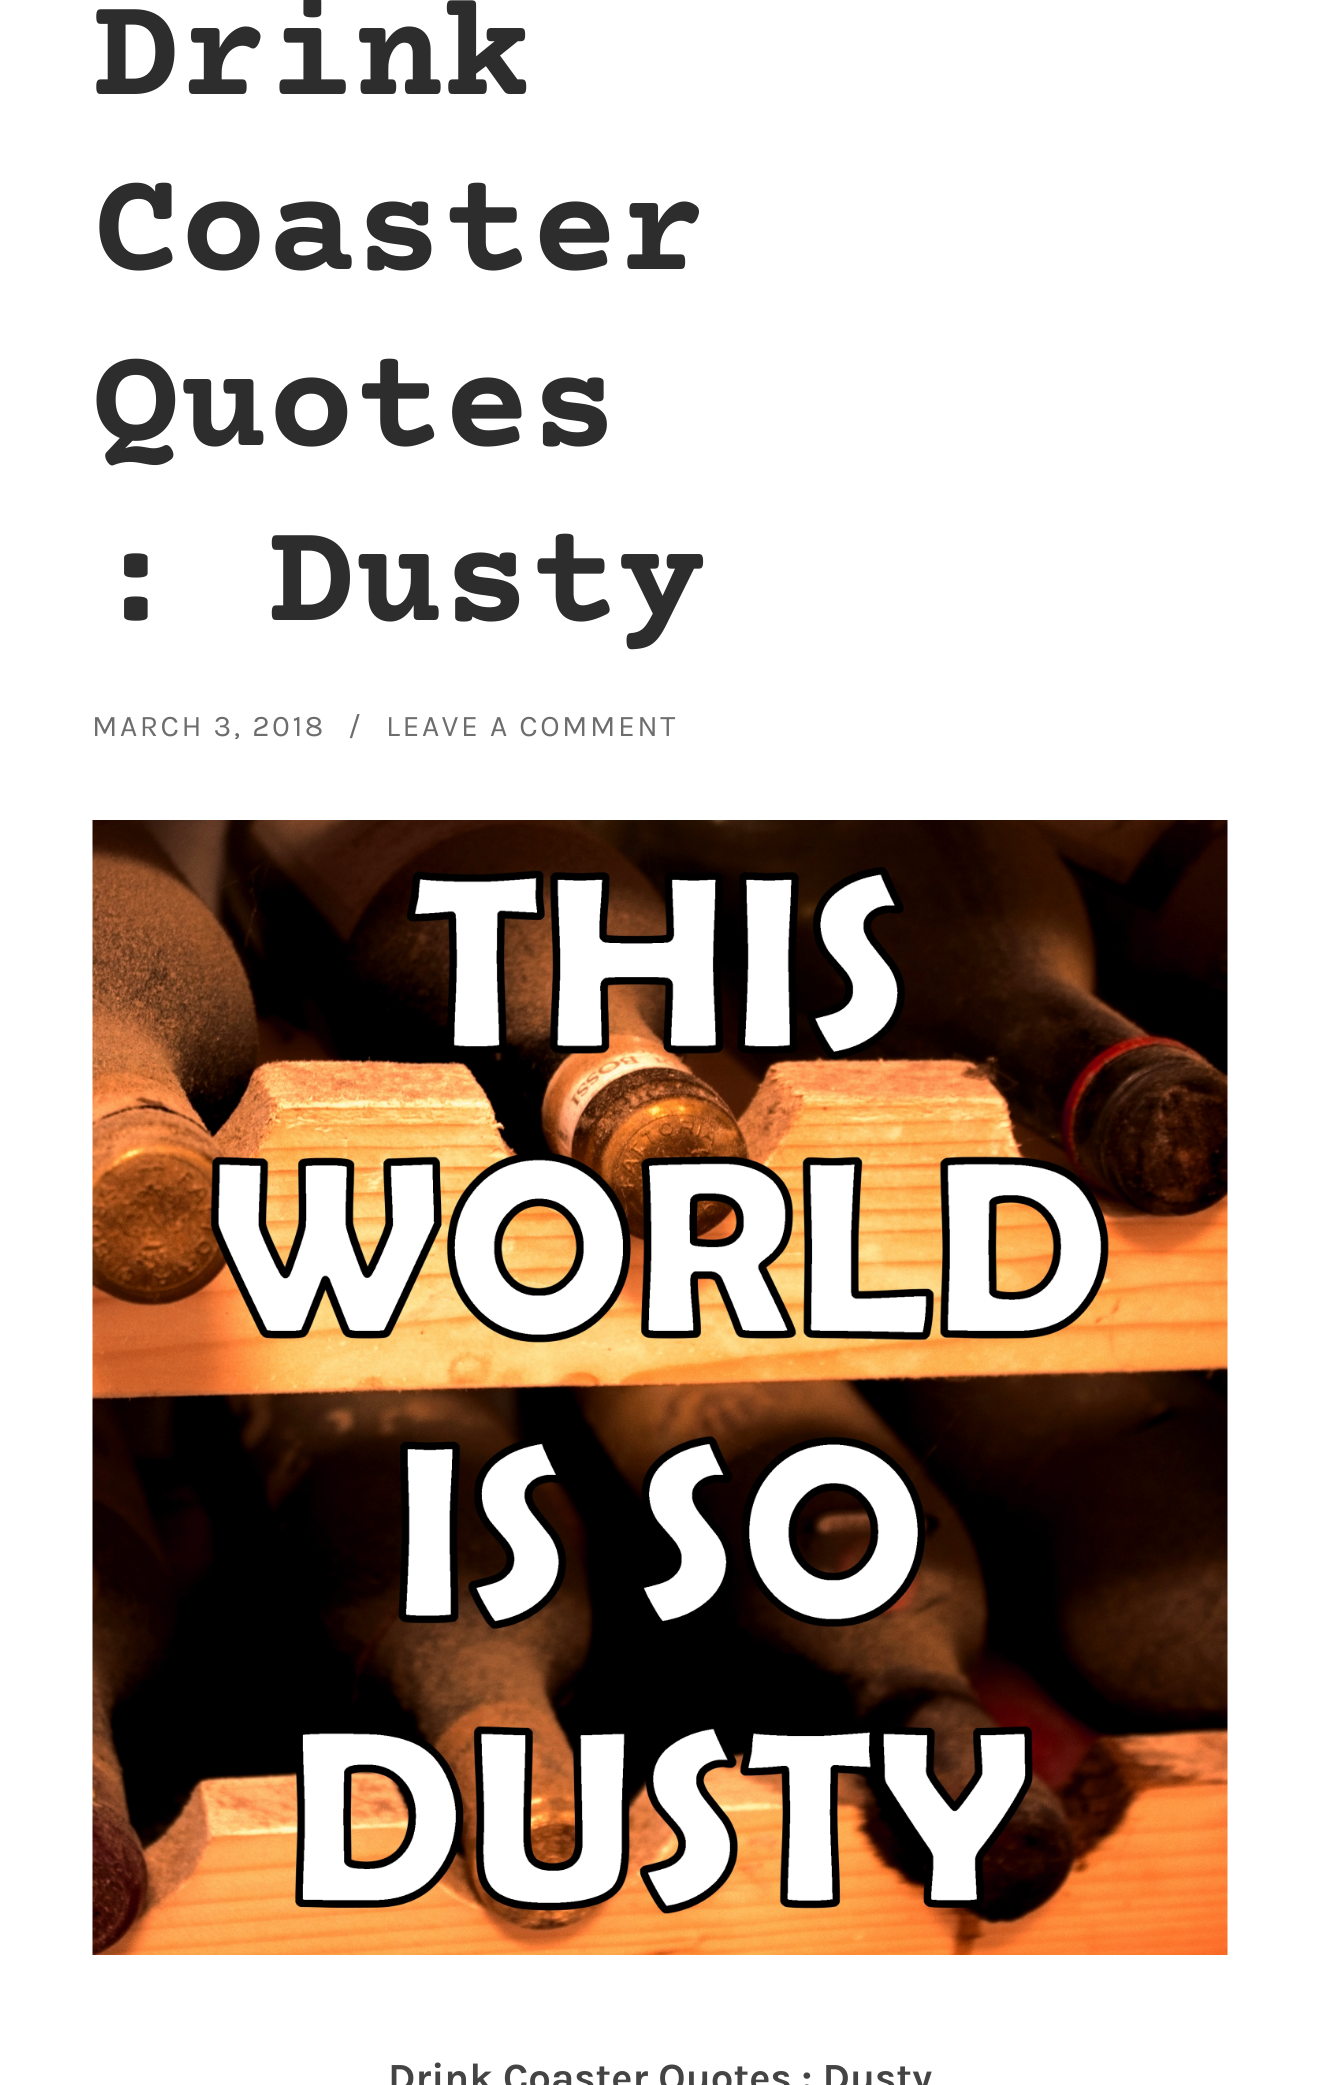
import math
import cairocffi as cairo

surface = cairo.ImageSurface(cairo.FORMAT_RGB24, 1319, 2085)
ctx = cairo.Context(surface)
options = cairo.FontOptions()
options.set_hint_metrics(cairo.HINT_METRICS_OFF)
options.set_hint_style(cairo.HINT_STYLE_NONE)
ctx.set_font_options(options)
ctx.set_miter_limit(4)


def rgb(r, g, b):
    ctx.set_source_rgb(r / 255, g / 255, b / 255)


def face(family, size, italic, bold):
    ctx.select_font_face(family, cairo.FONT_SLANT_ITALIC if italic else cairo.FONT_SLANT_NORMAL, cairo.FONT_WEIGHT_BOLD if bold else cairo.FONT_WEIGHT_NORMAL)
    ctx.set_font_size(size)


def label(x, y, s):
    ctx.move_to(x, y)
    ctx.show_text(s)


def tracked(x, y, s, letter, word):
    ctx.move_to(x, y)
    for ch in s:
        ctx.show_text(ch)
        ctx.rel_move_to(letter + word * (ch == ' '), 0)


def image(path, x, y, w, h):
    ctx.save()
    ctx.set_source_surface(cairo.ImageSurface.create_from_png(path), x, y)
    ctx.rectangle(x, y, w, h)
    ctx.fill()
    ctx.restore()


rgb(255, 255, 255)
ctx.paint()
face('Courier Prime', 146.25, 0, 1)
rgb(45, 45, 45)
label(92, 94, 'Drink')
label(92, 269, 'Coaster')
label(92, 445, 'Quotes')
label(92, 620, ': Dusty')
face('Karla', 30, 0, 0)
rgb(109, 109, 109)
tracked(92, 736, 'MARCH 3, 2018', 2.5, 0)
tracked(348, 736, '/', 2.5, 0)
tracked(386, 736, 'LEAVE A COMMENT', 2.5, 0)
image('image0.png', 92, 820, 1136, 1135)
face('Karla', 40, 0, 1)
rgb(68, 68, 68)
label(388, 2091, 'Drink Coaster Quotes : Dusty')
surface.write_to_png('render.png')
